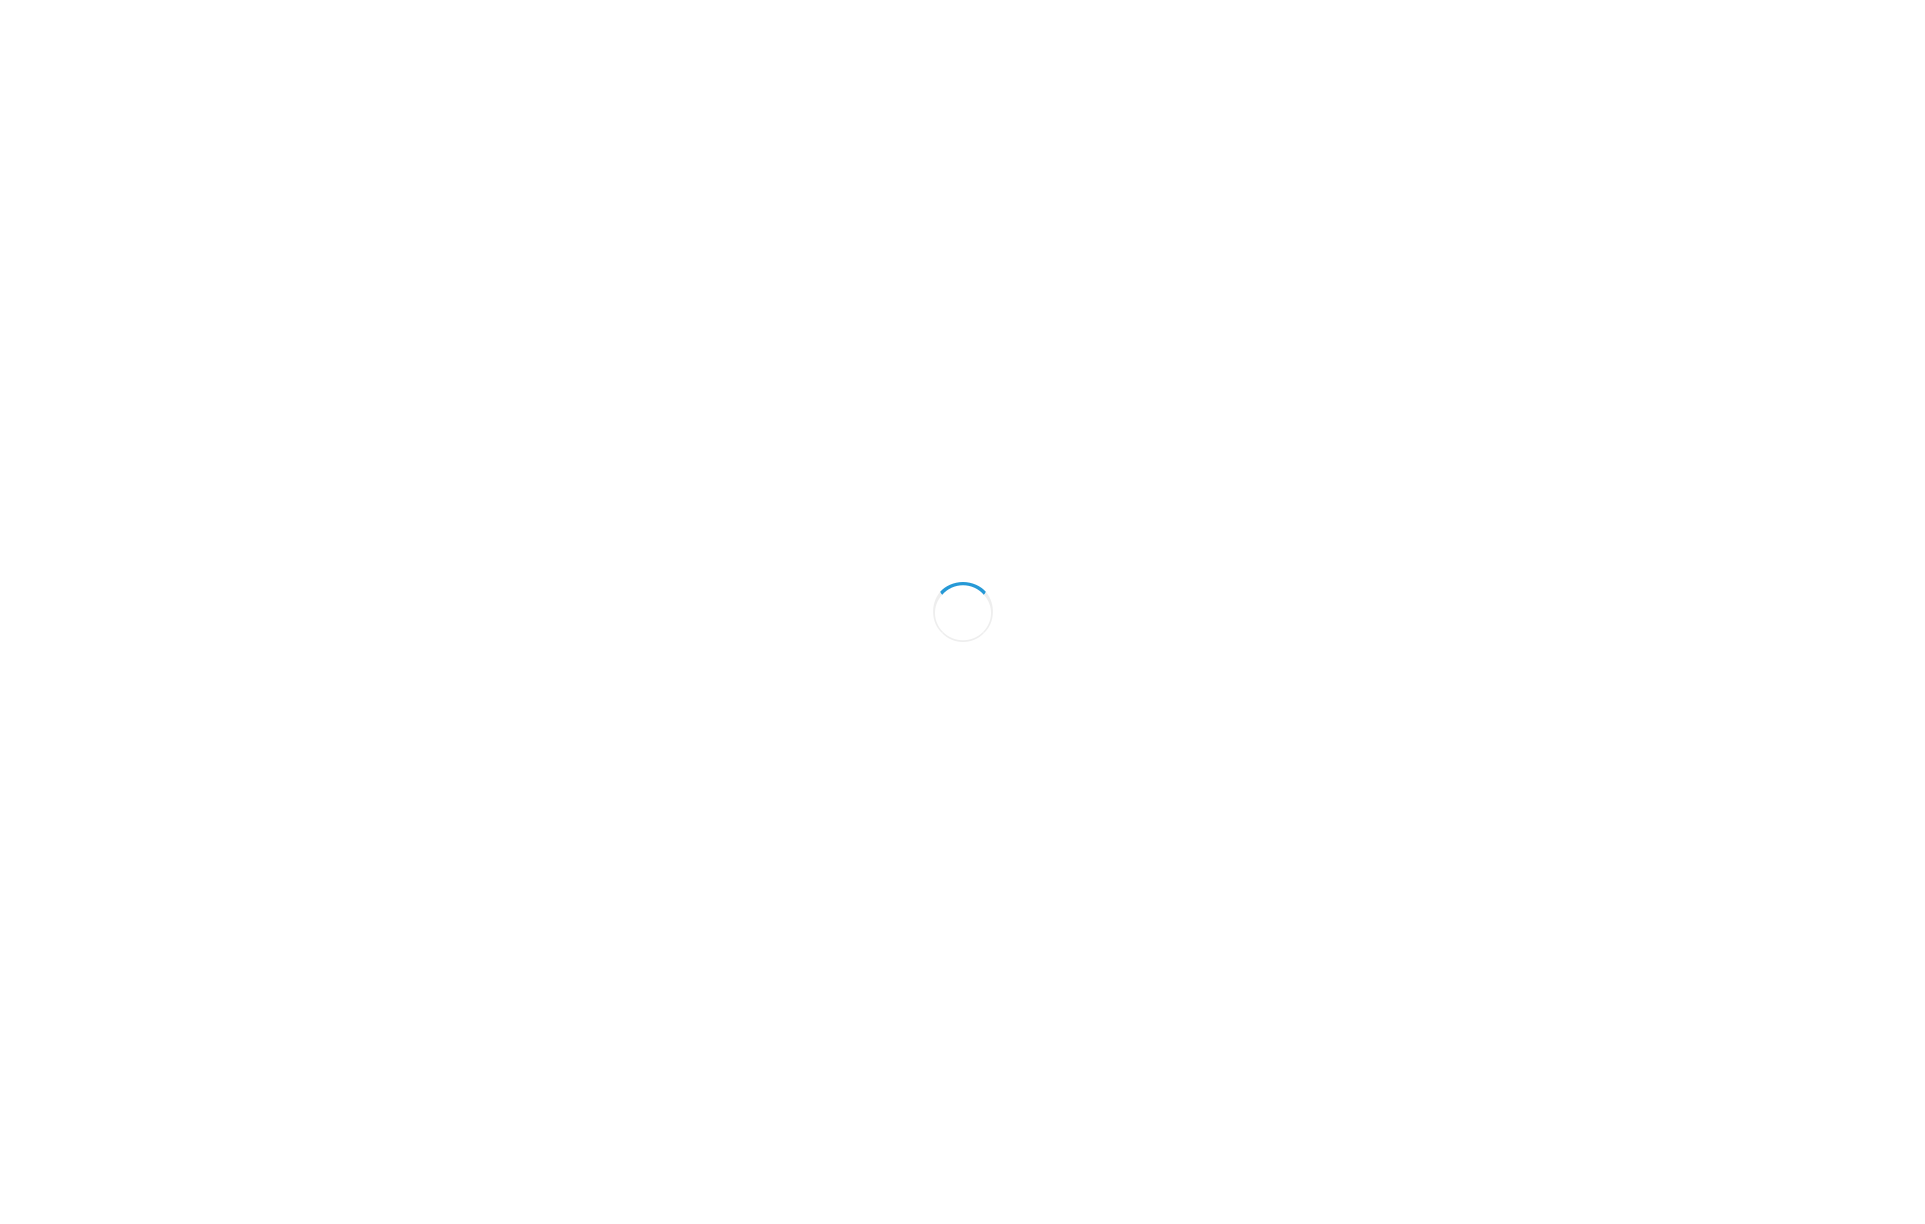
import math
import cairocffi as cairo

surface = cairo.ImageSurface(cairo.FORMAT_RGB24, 1925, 1224)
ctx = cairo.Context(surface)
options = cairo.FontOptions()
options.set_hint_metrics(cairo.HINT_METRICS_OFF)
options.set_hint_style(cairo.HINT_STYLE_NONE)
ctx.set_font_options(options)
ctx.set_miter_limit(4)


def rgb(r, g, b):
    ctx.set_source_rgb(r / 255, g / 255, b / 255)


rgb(255, 255, 255)
ctx.paint()
rgb(38, 153, 214)
ctx.new_path()
ctx.move_to(963, 582)
ctx.curve_to(954, 582, 945, 586, 940, 592)
ctx.line_to(942, 595)
ctx.curve_to(953, 582, 973, 582, 984, 595)
ctx.line_to(986, 592)
ctx.curve_to(981, 586, 972, 582, 963, 582)
ctx.close_path()
ctx.fill()
rgb(238, 238, 238)
ctx.new_path()
ctx.move_to(986, 592)
ctx.curve_to(996, 604, 995, 623, 984, 633)
ctx.line_to(983, 632)
ctx.curve_to(993, 622, 994, 606, 984, 595)
ctx.close_path()
ctx.fill()
ctx.new_path()
ctx.move_to(984, 633)
ctx.curve_to(973, 645, 953, 645, 942, 633)
ctx.line_to(943, 632)
ctx.curve_to(954, 643, 972, 643, 983, 632)
ctx.close_path()
ctx.fill()
ctx.new_path()
ctx.move_to(942, 633)
ctx.curve_to(931, 623, 930, 604, 940, 592)
ctx.line_to(942, 595)
ctx.curve_to(932, 606, 933, 622, 943, 632)
ctx.close_path()
ctx.fill()
surface.write_to_png('render.png')
